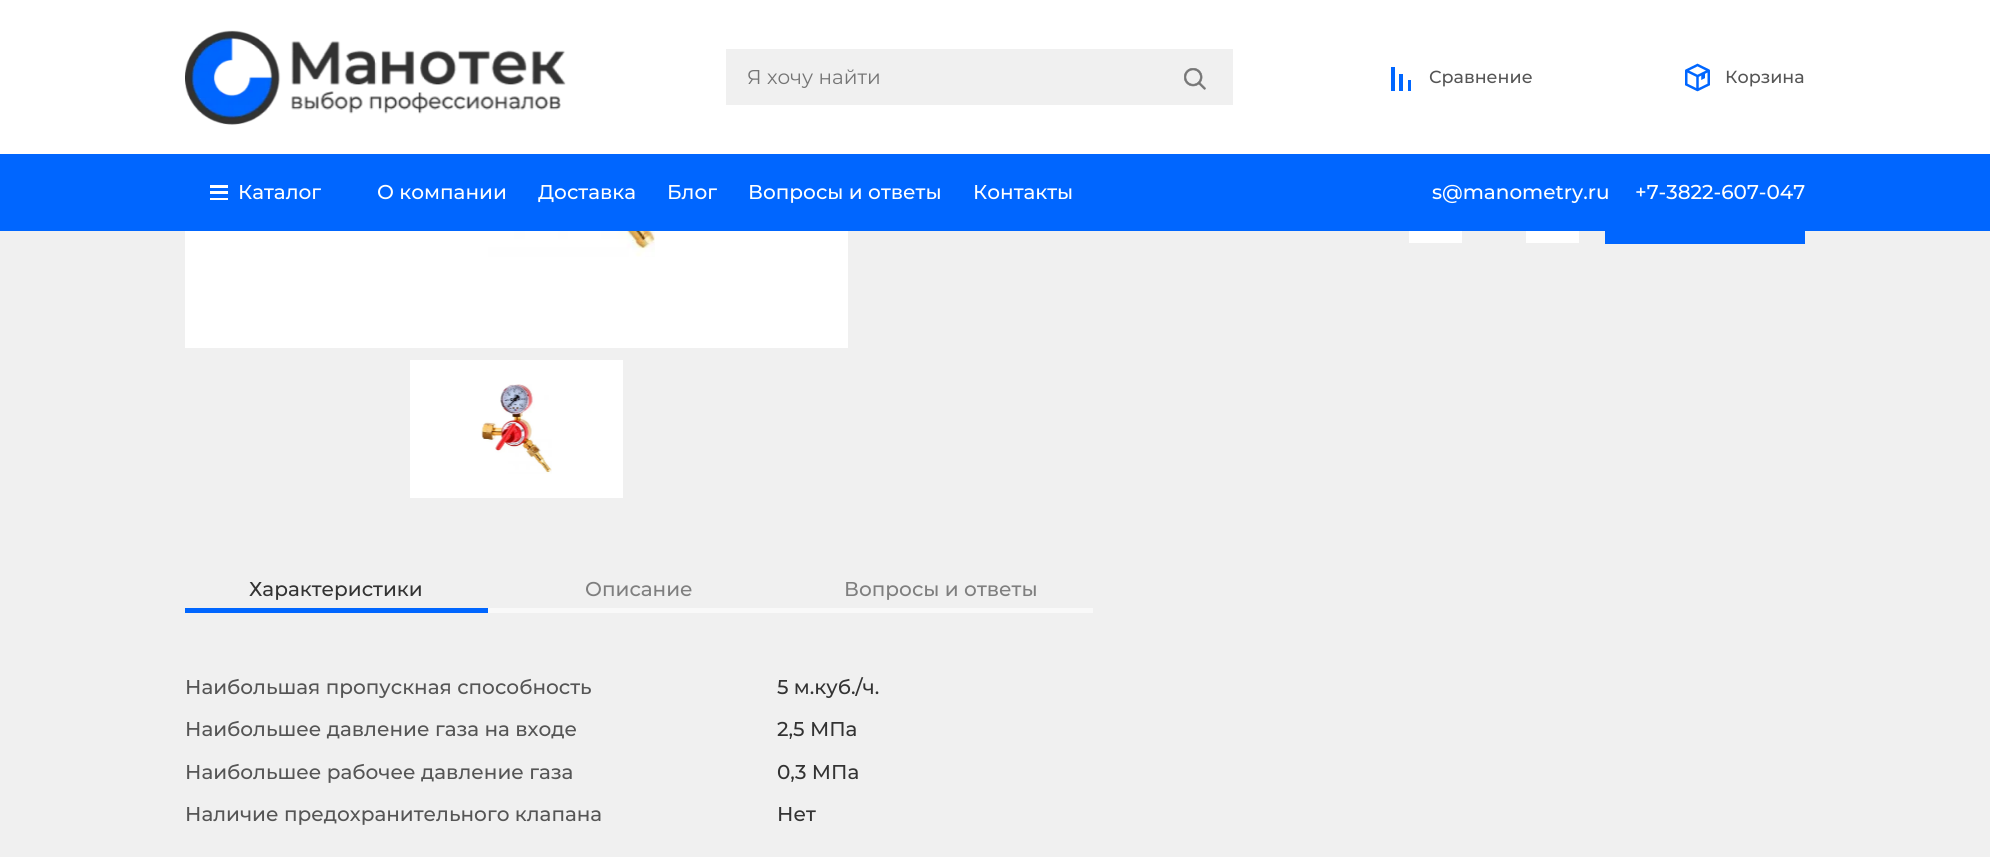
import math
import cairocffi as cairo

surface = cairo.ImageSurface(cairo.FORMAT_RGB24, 1990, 857)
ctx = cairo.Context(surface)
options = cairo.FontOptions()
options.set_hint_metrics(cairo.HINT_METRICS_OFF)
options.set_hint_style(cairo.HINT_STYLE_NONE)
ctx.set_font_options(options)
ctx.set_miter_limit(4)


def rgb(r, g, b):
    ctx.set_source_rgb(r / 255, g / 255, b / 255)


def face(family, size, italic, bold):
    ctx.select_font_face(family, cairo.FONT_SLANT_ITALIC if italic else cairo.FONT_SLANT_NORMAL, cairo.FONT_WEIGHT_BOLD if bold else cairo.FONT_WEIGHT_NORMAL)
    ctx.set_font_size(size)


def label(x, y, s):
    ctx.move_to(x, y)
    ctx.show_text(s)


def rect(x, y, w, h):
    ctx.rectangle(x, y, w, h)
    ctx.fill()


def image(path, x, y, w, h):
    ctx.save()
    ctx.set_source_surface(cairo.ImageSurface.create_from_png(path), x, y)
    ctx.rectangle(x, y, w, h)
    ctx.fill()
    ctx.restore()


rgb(240, 240, 240)
ctx.paint()
rgb(255, 255, 255)
rect(0, 0, 1990, 154)
image('image0.png', 185, 30, 381, 95)
rgb(240, 240, 240)
rect(726, 49, 507, 56)
face('Montserrat', 20, 0, 0)
rgb(117, 117, 117)
label(747, 84, 'Я хочу найти')
image('image1.png', 1184, 68, 22, 22)
rgb(0, 102, 255)
rect(1391, 67, 4, 24)
rect(1399, 74, 4, 17)
rect(1408, 80, 3, 11)
face('Montserrat Medium', 17.5, 0, 0)
rgb(85, 85, 85)
label(1429, 83, 'Сравнение')
image('image2.png', 1685, 63, 25, 29)
label(1725, 83, 'Корзина')
rgb(0, 102, 255)
rect(0, 154, 1990, 77)
rgb(255, 255, 255)
rect(210, 185, 18, 3)
rect(210, 191, 18, 3)
rect(210, 198, 18, 2)
face('Montserrat Medium', 20, 0, 0)
label(238, 199, 'Каталог')
label(377, 199, 'О компании')
label(538, 199, 'Доставка')
label(667, 199, 'Блог')
label(748, 199, 'Вопросы и ответы')
label(973, 199, 'Контакты')
label(1432, 199, 's@manometry.ru')
label(1635, 199, '+7-3822-607-047')
rect(185, 231, 663, 117)
image('image3.png', 376, 231, 279, 26)
rect(410, 360, 213, 138)
image('image4.png', 481, 384, 71, 90)
rect(1409, 231, 53, 12)
rect(1526, 231, 53, 12)
rgb(0, 102, 255)
rect(1605, 231, 200, 13)
rect(185, 608, 303, 5)
rgb(51, 51, 51)
label(249, 596, 'Характеристики')
rgb(249, 249, 249)
rect(488, 608, 605, 5)
rgb(127, 127, 127)
label(585, 596, 'Описание')
label(844, 596, 'Вопросы и ответы')
rgb(85, 85, 85)
label(185, 694, 'Наибольшая пропускная способность')
rgb(51, 51, 51)
label(777, 694, '5 м.куб./ч.')
rgb(85, 85, 85)
label(185, 736, 'Наибольшее давление газа на входе')
rgb(51, 51, 51)
label(777, 736, '2,5 МПа')
rgb(85, 85, 85)
label(185, 779, 'Наибольшее рабочее давление газа')
rgb(51, 51, 51)
label(777, 779, '0,3 МПа')
rgb(85, 85, 85)
label(185, 821, 'Наличие предохранительного клапана')
rgb(51, 51, 51)
label(777, 821, 'Нет')
surface.write_to_png('render.png')
